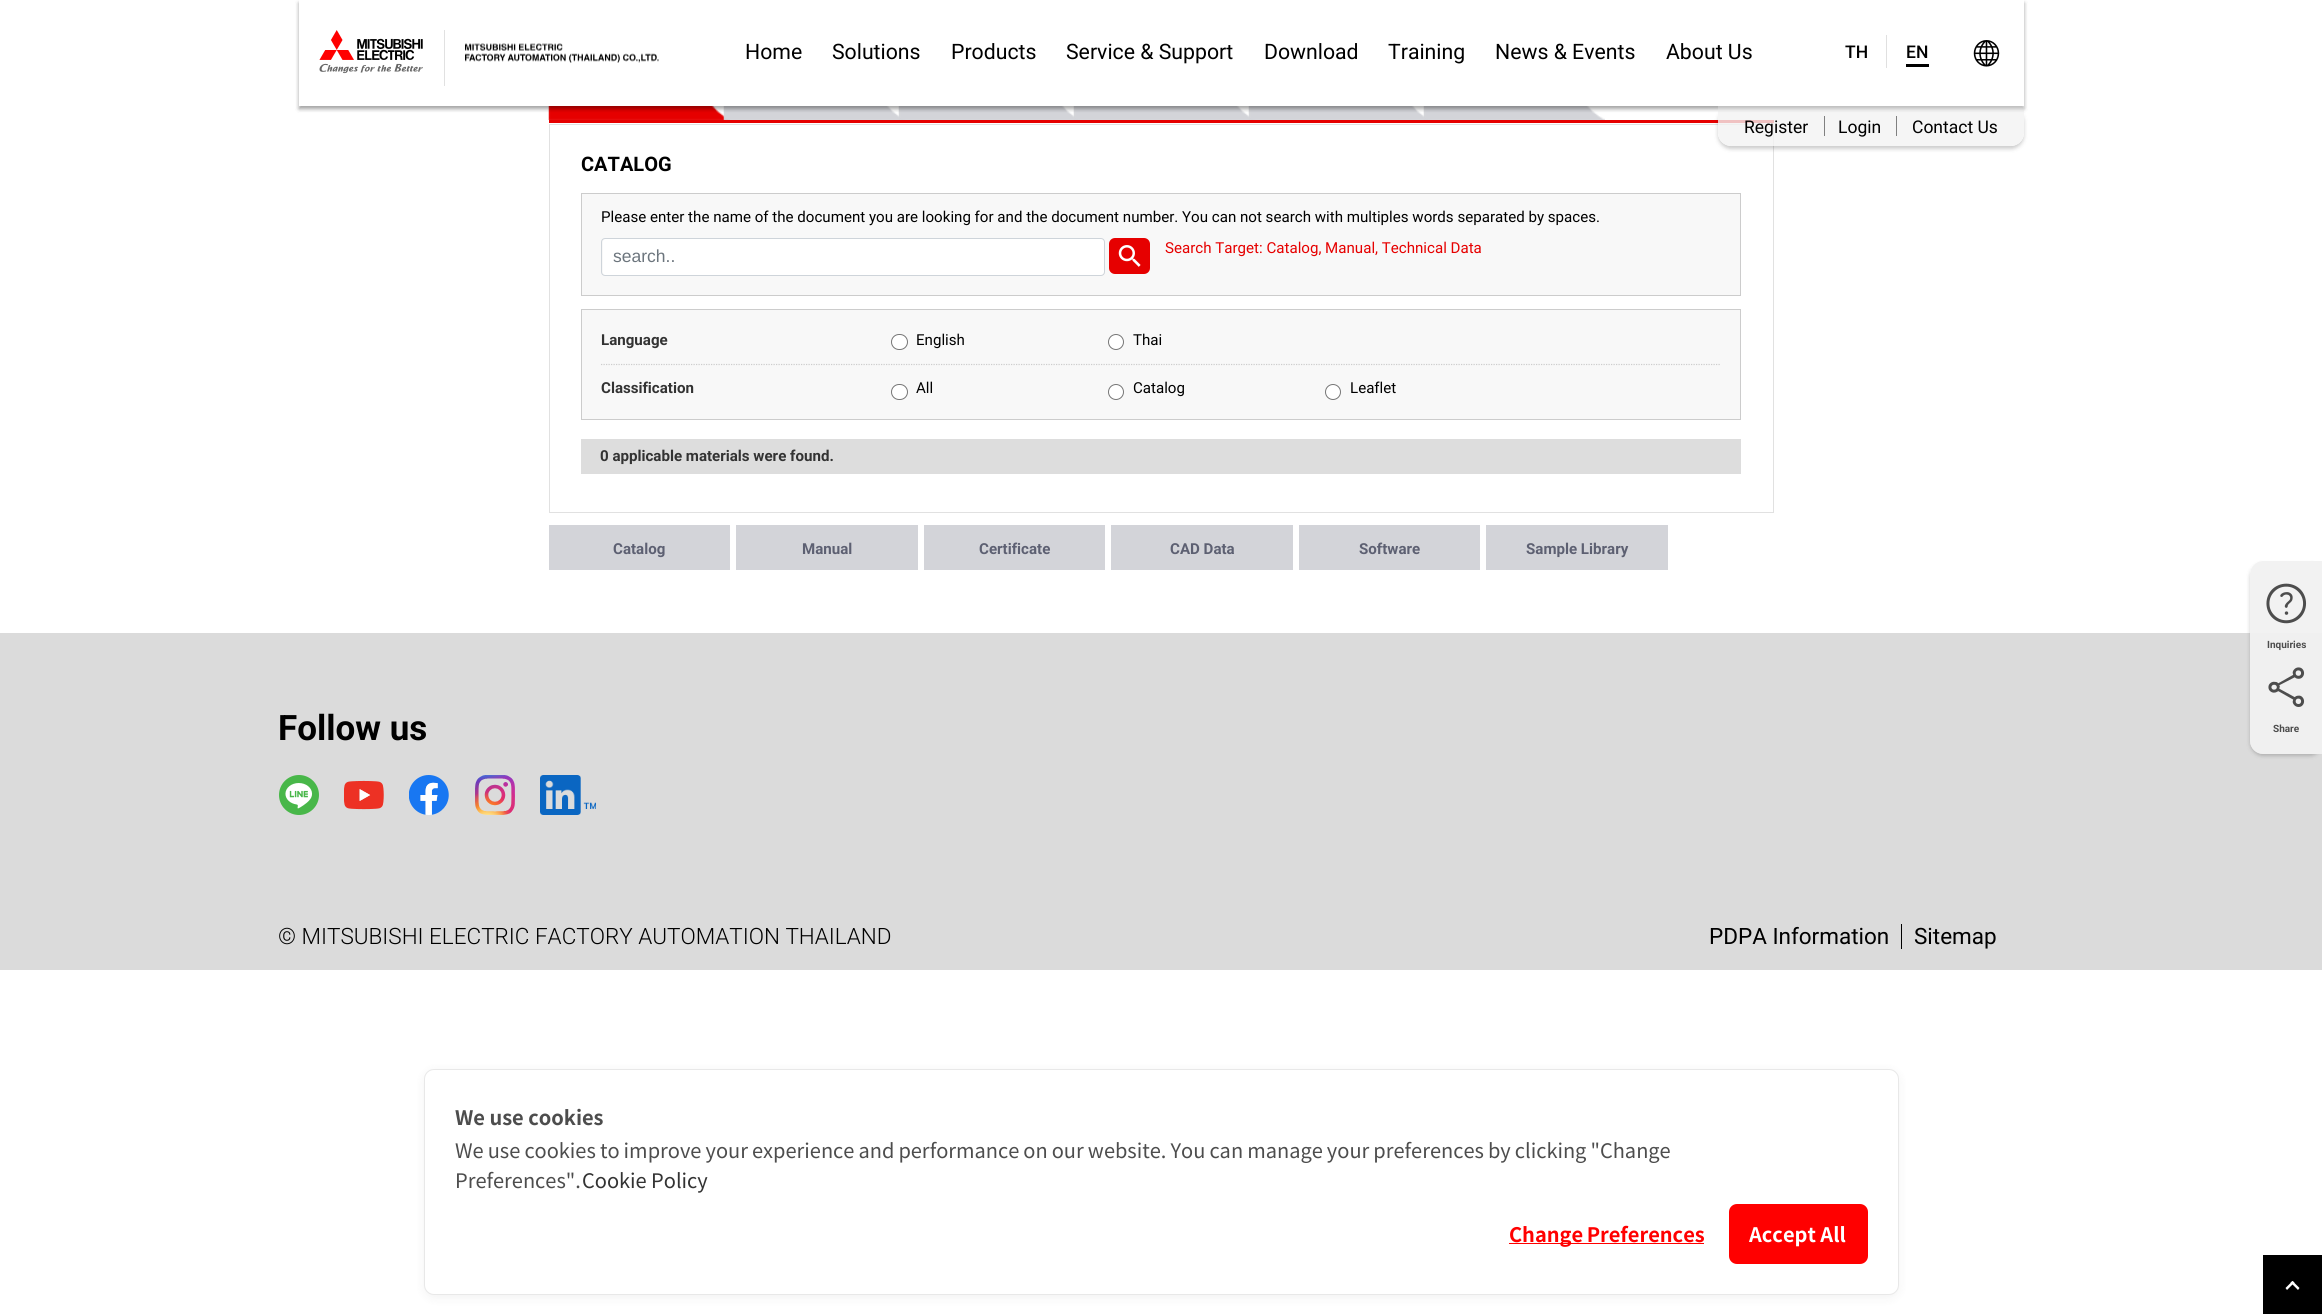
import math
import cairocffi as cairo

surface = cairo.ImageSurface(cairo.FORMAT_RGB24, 2322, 1314)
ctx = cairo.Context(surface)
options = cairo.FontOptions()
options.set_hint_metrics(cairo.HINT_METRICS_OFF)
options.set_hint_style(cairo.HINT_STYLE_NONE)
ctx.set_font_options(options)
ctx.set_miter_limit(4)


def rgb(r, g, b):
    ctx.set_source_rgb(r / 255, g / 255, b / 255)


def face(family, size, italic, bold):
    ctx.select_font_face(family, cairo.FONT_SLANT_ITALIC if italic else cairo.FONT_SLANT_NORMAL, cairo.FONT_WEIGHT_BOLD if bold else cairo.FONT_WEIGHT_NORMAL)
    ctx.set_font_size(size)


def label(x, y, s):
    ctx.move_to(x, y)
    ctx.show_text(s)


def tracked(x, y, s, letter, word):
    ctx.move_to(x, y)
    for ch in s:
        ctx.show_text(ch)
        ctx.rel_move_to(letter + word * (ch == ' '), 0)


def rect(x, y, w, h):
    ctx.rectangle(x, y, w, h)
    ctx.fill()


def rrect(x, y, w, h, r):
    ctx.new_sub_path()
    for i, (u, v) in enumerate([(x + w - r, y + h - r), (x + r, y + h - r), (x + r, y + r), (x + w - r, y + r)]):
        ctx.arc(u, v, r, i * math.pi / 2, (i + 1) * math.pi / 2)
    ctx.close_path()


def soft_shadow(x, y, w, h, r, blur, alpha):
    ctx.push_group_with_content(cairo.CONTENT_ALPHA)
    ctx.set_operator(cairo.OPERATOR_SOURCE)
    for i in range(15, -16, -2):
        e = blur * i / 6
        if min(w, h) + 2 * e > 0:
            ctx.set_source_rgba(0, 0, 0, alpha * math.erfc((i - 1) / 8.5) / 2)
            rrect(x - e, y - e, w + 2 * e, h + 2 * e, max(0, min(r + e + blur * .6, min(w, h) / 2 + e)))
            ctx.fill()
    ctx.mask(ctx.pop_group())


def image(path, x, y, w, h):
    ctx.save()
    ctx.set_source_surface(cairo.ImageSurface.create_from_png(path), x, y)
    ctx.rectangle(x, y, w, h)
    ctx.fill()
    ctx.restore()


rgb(255, 255, 255)
ctx.paint()
image('image3.png', 548, 106, 182, 14)
image('image4.png', 723, 106, 182, 14)
image('image5.png', 898, 106, 182, 14)
image('image5.png', 1073, 106, 182, 14)
image('image5.png', 1248, 106, 182, 14)
image('image5.png', 1423, 106, 182, 14)
rgb(0, 0, 0)
soft_shadow(299, 3, 1725, 106, 0, 2, 0.2)
rgb(230, 0, 0)
rect(549, 120, 1225, 3)
ctx.rectangle(549.5, 124.5, 1224, 388)
rgb(225, 225, 225)
ctx.set_line_width(1)
ctx.stroke()
ctx.save()
ctx.set_fill_rule(cairo.FILL_RULE_EVEN_ODD)
ctx.new_path()
ctx.move_to(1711, 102)
ctx.line_to(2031, 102)
ctx.line_to(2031, 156)
ctx.line_to(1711, 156)
ctx.close_path()
ctx.move_to(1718, 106)
ctx.line_to(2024, 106)
ctx.line_to(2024, 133)
ctx.curve_to(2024, 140, 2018, 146, 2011, 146)
ctx.line_to(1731, 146)
ctx.curve_to(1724, 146, 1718, 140, 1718, 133)
ctx.close_path()
ctx.clip()
rgb(0, 0, 0)
soft_shadow(1718, 109, 306, 40, 13, 2, 0.2)
ctx.restore()
ctx.set_source_rgba(0.949, 0.949, 0.949, 0.8)
ctx.new_path()
ctx.move_to(1718, 106)
ctx.line_to(2024, 106)
ctx.line_to(2024, 133)
ctx.curve_to(2024, 140, 2018, 146, 2011, 146)
ctx.line_to(1731, 146)
ctx.curve_to(1724, 146, 1718, 140, 1718, 133)
ctx.close_path()
ctx.fill()
rgb(0, 0, 0)
soft_shadow(299, 3, 1725, 106, 0, 2, 0.2)
rgb(255, 255, 255)
rect(299, 0, 1725, 106)
rgb(225, 225, 225)
rect(444, 30, 1, 56)
image('image0.png', 319, 30, 104, 44)
image('image1.png', 465, 43, 194, 20)
face('Roboto', 21.25, 0, 0)
rgb(0, 0, 0)
label(745, 59, 'Home')
label(832, 59, 'Solutions')
label(951, 59, 'Products')
label(1066, 59, 'Service & Support')
label(1264, 59, 'Download')
label(1388, 59, 'Training')
label(1495, 59, 'News & Events')
label(1666, 59, 'About Us')
face('Roboto Medium', 17.5, 0, 0)
label(1845, 58, 'TH')
rgb(224, 224, 224)
rect(1886, 35, 1, 33)
rgb(0, 0, 0)
label(1906, 58, 'EN')
rect(1906, 64, 23, 3)
image('image2.png', 1973, 40, 27, 27)
face('Roboto', 17.5, 0, 0)
label(1744, 133, 'Register')
rgb(128, 128, 128)
rect(1824, 116, 1, 20)
rgb(0, 0, 0)
label(1838, 133, 'Login')
rgb(128, 128, 128)
rect(1896, 116, 1, 20)
rgb(0, 0, 0)
label(1912, 133, 'Contact Us')
face('Roboto', 20, 0, 1)
label(581, 171, 'CATALOG')
rgb(248, 248, 248)
ctx.rectangle(581.5, 193.5, 1159, 102)
ctx.fill_preserve()
rgb(204, 204, 204)
ctx.stroke()
face('Roboto', 15.1, 0, 0)
rgb(0, 0, 0)
label(601, 222, 'Please enter the name of the document you are looking for and the document number. You can not search with multiples words separated by spaces.')
rgb(255, 255, 255)
rrect(603, 239, 501, 36, 2.5)
ctx.fill()
rrect(601.5, 238.5, 503, 37, 3.5)
rgb(206, 212, 218)
ctx.stroke()
face('Liberation Sans', 17.5, 0, 0)
rgb(108, 117, 125)
label(613, 262, 'search..')
rgb(230, 0, 0)
rrect(1109, 238, 41, 36, 6)
ctx.fill()
image('image6.png', 1118, 245, 23, 22)
face('Roboto', 15.1, 0, 0)
label(1165, 253, 'Search Target: Catalog, Manual, Technical Data')
rgb(248, 248, 248)
ctx.rectangle(581.5, 309.5, 1159, 110)
ctx.fill_preserve()
rgb(204, 204, 204)
ctx.stroke()
ctx.new_path()
ctx.move_to(601, 364.5)
ctx.line_to(1721, 364.5)
ctx.set_line_width(1.2)
ctx.set_dash([1.25, 1.25])
ctx.stroke()
face('Roboto', 15.1, 0, 1)
rgb(51, 51, 51)
label(601, 345, 'Language')
rgb(255, 255, 255)
rrect(891.5, 334.5, 16, 15, 7.5)
ctx.fill_preserve()
rgb(118, 118, 118)
ctx.set_line_width(1)
ctx.set_dash([])
ctx.stroke()
face('Roboto', 15.1, 0, 0)
rgb(0, 0, 0)
label(916, 345, 'English')
rgb(255, 255, 255)
ctx.new_path()
ctx.arc(1116, 342, 7.5, 0, 2 * math.pi)
ctx.fill_preserve()
rgb(118, 118, 118)
ctx.stroke()
rgb(0, 0, 0)
label(1133, 345, 'Thai')
face('Roboto', 15.1, 0, 1)
rgb(51, 51, 51)
label(601, 393, 'Classification')
rgb(255, 255, 255)
rrect(891.5, 384.5, 16, 15, 7.5)
ctx.fill_preserve()
rgb(118, 118, 118)
ctx.stroke()
face('Roboto', 15.1, 0, 0)
rgb(0, 0, 0)
label(916, 393, 'All')
rgb(255, 255, 255)
ctx.new_path()
ctx.arc(1116, 392, 7.5, 0, 2 * math.pi)
ctx.fill_preserve()
rgb(118, 118, 118)
ctx.stroke()
rgb(0, 0, 0)
label(1133, 393, 'Catalog')
rgb(255, 255, 255)
ctx.new_path()
ctx.arc(1333, 392, 7.5, 0, 2 * math.pi)
ctx.fill_preserve()
rgb(118, 118, 118)
ctx.stroke()
rgb(0, 0, 0)
label(1350, 393, 'Leaflet')
rgb(221, 221, 221)
rect(581, 439, 1160, 35)
face('Roboto', 15.1, 0, 1)
rgb(51, 51, 51)
label(600, 461, '0 applicable materials were found.')
rgb(211, 212, 217)
rect(549, 525, 181, 45)
rgb(93, 96, 114)
label(613, 554, 'Catalog')
rgb(211, 212, 217)
rect(736, 525, 182, 45)
rgb(93, 96, 114)
label(802, 554, 'Manual')
rgb(211, 212, 217)
rect(924, 525, 181, 45)
rgb(93, 96, 114)
label(979, 554, 'Certificate')
rgb(211, 212, 217)
rect(1111, 525, 182, 45)
rgb(93, 96, 114)
label(1170, 554, 'CAD Data')
rgb(211, 212, 217)
rect(1299, 525, 181, 45)
rgb(93, 96, 114)
label(1359, 554, 'Software')
rgb(211, 212, 217)
rect(1486, 525, 182, 45)
rgb(93, 96, 114)
label(1526, 554, 'Sample Library')
rgb(219, 219, 219)
rect(0, 633, 2322, 337)
ctx.save()
ctx.set_fill_rule(cairo.FILL_RULE_EVEN_ODD)
ctx.new_path()
ctx.move_to(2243, 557)
ctx.line_to(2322, 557)
ctx.line_to(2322, 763)
ctx.line_to(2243, 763)
ctx.close_path()
ctx.move_to(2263, 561)
ctx.line_to(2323, 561)
ctx.line_to(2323, 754)
ctx.line_to(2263, 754)
ctx.curve_to(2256, 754, 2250, 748, 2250, 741)
ctx.line_to(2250, 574)
ctx.curve_to(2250, 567, 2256, 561, 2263, 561)
ctx.close_path()
ctx.clip()
rgb(0, 0, 0)
soft_shadow(2250, 564, 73, 192, 13, 2, 0.2)
ctx.restore()
ctx.set_source_rgba(0.949, 0.949, 0.949, 0.95)
ctx.new_path()
ctx.move_to(2263, 561)
ctx.line_to(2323, 561)
ctx.line_to(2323, 754)
ctx.line_to(2263, 754)
ctx.curve_to(2256, 754, 2250, 748, 2250, 741)
ctx.line_to(2250, 574)
ctx.curve_to(2250, 567, 2256, 561, 2263, 561)
ctx.close_path()
ctx.fill()
image('image7.png', 2266, 583, 41, 41)
face('Roboto', 10, 0, 1)
rgb(77, 77, 77)
label(2267, 648, 'Inquiries')
image('image8.png', 2268, 667, 37, 40)
label(2273, 732, 'Share')
face('Roboto', 35, 0, 1)
rgb(0, 0, 0)
label(278, 740, 'Follow us')
image('image9.png', 279, 775, 40, 40)
image('image10.png', 344, 780, 40, 30)
image('image11.png', 409, 775, 40, 40)
image('image12.png', 475, 775, 40, 40)
image('image13.png', 540, 775, 56, 40)
face('Roboto Light', 22.5, 0, 0)
label(278, 944, '© MITSUBISHI ELECTRIC FACTORY AUTOMATION THAILAND')
face('Roboto', 22.5, 0, 0)
label(1709, 944, 'PDPA Information')
rect(1901, 924, 1, 25)
label(1914, 944, 'Sitemap')
rect(2263, 1255, 59, 59)
rgb(255, 255, 255)
ctx.new_path()
ctx.move_to(2292.5, 1281)
ctx.line_to(2299.5, 1288)
ctx.line_to(2298, 1290)
ctx.line_to(2290.5, 1282.5)
ctx.close_path()
ctx.fill()
ctx.new_path()
ctx.move_to(2292.5, 1281)
ctx.line_to(2294.5, 1282.5)
ctx.line_to(2287, 1290)
ctx.line_to(2285.5, 1288)
ctx.close_path()
ctx.fill()
rgb(0, 0, 0)
soft_shadow(424, 1071, 1475, 227, 10, 5, 0.05)
rgb(255, 255, 255)
rrect(424.5, 1069.5, 1474, 225, 9.5)
ctx.fill_preserve()
rgb(232, 232, 232)
ctx.stroke()
face('Noto Sans JP', 20, 0, 1)
rgb(77, 77, 77)
label(455, 1125, 'We use cookies')
face('Noto Sans JP', 20, 0, 0)
tracked(455, 1158, 'We use cookies to improve your experience and performance on our website. You can manage your preferences by clicking "Change', 0, -0.4)
label(455, 1188, 'Preferences".')
rgb(51, 51, 51)
label(582, 1188, 'Cookie Policy')
rgb(255, 0, 0)
rect(1509, 1243, 195, 1)
face('Noto Sans JP', 20, 0, 1)
tracked(1509, 1242, 'Change Preferences', 0, -1)
rrect(1729, 1204, 139, 60, 8)
ctx.fill()
rgb(255, 255, 255)
label(1749, 1242, 'Accept All')
surface.write_to_png('render.png')
